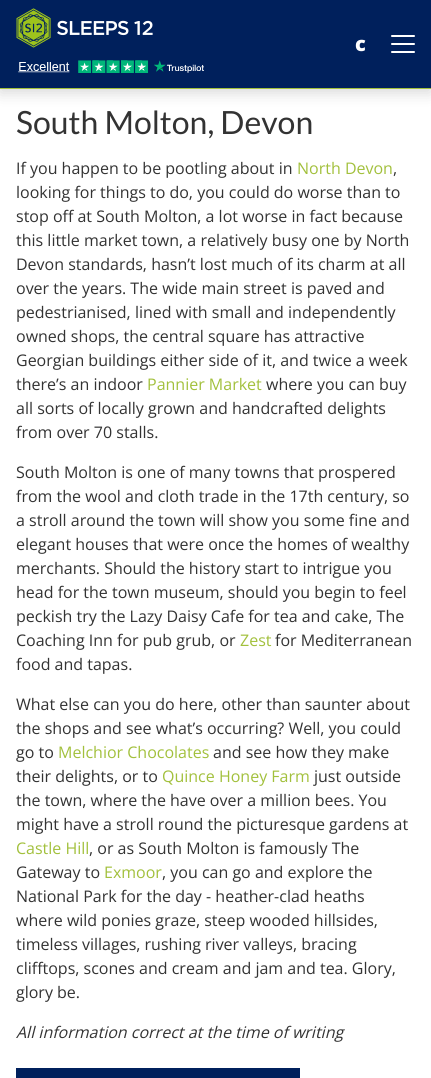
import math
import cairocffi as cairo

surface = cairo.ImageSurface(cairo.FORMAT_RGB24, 431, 1078)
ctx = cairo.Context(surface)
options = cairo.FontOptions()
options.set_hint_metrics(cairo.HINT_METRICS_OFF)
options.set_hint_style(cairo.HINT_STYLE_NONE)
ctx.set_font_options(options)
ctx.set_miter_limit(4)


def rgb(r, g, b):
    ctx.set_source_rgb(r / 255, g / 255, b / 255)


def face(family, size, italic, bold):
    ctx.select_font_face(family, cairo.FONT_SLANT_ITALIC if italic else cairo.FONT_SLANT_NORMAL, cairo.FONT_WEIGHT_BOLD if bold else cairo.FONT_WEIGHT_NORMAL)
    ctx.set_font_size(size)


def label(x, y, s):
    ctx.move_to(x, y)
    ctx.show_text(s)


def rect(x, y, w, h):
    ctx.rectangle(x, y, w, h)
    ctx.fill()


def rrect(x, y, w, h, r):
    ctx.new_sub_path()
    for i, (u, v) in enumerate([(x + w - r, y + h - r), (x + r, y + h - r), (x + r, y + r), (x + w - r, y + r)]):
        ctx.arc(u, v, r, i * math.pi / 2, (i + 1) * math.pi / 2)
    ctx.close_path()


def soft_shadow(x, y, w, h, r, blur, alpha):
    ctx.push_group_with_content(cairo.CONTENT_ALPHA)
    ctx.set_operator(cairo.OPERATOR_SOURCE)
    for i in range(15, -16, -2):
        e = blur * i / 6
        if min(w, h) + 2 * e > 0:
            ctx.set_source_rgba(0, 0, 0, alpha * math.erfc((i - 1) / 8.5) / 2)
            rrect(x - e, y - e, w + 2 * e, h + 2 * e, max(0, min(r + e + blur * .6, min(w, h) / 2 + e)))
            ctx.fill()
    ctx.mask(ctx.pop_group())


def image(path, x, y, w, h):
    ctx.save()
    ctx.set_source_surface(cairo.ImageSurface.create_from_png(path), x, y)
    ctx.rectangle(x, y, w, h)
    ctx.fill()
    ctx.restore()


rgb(255, 255, 255)
ctx.paint()
rgb(0, 0, 0)
soft_shadow(0, -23, 431, 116, 0, 7.5, 0.15)
rgb(0, 32, 92)
rect(0, 0, 431, 88)
rgb(162, 192, 60)
rect(0, 88, 431, 1)
image('image0.png', 16, 8, 137, 40)
image('image1.png', 18, 60, 186, 13)
face('Noto Sans Black', 20, 0, 0)
rgb(255, 255, 255)
label(355, 51, 'c')
rrect(391, 43, 24, 2, 1)
ctx.fill()
rrect(391, 35, 24, 2, 1)
ctx.fill()
rrect(391, 51, 24, 2, 1)
ctx.fill()
face('Lato', 32, 0, 0)
rgb(51, 51, 51)
label(16, 134, 'South Molton, Devon')
face('Open Sans', 16, 0, 0)
label(16, 174, 'If you happen to be pootling about in')
rgb(162, 192, 60)
label(297, 174, 'North Devon')
rgb(51, 51, 51)
label(393, 174, ',')
label(16, 198, 'looking for things to do, you could do worse than to')
label(16, 222, 'stop off at South Molton, a lot worse in fact because')
label(16, 246, 'this little market town, a relatively busy one by North')
label(16, 270, 'Devon standards, hasn’t lost much of its charm at all')
label(16, 294, 'over the years. The wide main street is paved and')
label(16, 318, 'pedestrianised, lined with small and independently')
label(16, 342, 'owned shops, the central square has attractive')
label(16, 366, 'Georgian buildings either side of it, and twice a week')
label(16, 390, 'there’s an indoor')
rgb(162, 192, 60)
label(147, 390, 'Pannier Market')
rgb(51, 51, 51)
label(266, 390, 'where you can buy')
label(16, 414, 'all sorts of locally grown and handcrafted delights')
label(16, 438, 'from over 70 stalls.')
label(16, 478, 'South Molton is one of many towns that prospered')
label(16, 502, 'from the wool and cloth trade in the 17th century, so')
label(16, 526, 'a stroll around the town will show you some fine and')
label(16, 550, 'elegant houses that were once the homes of wealthy')
label(16, 574, 'merchants. Should the history start to intrigue you')
label(16, 598, 'head for the town museum, should you begin to feel')
label(16, 622, 'peckish try the Lazy Daisy Cafe for tea and cake, The')
label(16, 646, 'Coaching Inn for pub grub, or')
rgb(162, 192, 60)
label(240, 646, 'Zest')
rgb(51, 51, 51)
label(275, 646, 'for Mediterranean')
label(16, 670, 'food and tapas.')
label(16, 710, 'What else can you do here, other than saunter about')
label(16, 734, 'the shops and see what’s occurring? Well, you could')
label(16, 758, 'go to')
rgb(162, 192, 60)
label(58, 758, 'Melchior Chocolates')
rgb(51, 51, 51)
label(213, 758, 'and see how they make')
label(16, 782, 'their delights, or to')
rgb(162, 192, 60)
label(162, 782, 'Quince Honey Farm')
rgb(51, 51, 51)
label(314, 782, 'just outside')
label(16, 806, 'the town, where the have over a million bees. You')
label(16, 830, 'might have a stroll round the picturesque gardens at')
rgb(162, 192, 60)
label(16, 854, 'Castle Hill')
rgb(51, 51, 51)
label(89, 854, ', or as South Molton is famously The')
label(16, 878, 'Gateway to')
rgb(162, 192, 60)
label(104, 878, 'Exmoor')
rgb(51, 51, 51)
label(162, 878, ', you can go and explore the')
label(16, 902, 'National Park for the day - heather-clad heaths')
label(16, 926, 'where wild ponies graze, steep wooded hillsides,')
label(16, 950, 'timeless villages, rushing river valleys, bracing')
label(16, 974, 'clifftops, scones and cream and jam and tea. Glory,')
label(16, 998, 'glory be.')
face('Open Sans', 16, 1, 0)
label(16, 1038, 'All information correct at the time of writing')
rgb(0, 32, 92)
rect(16, 1068, 284, 10)
surface.write_to_png('render.png')
